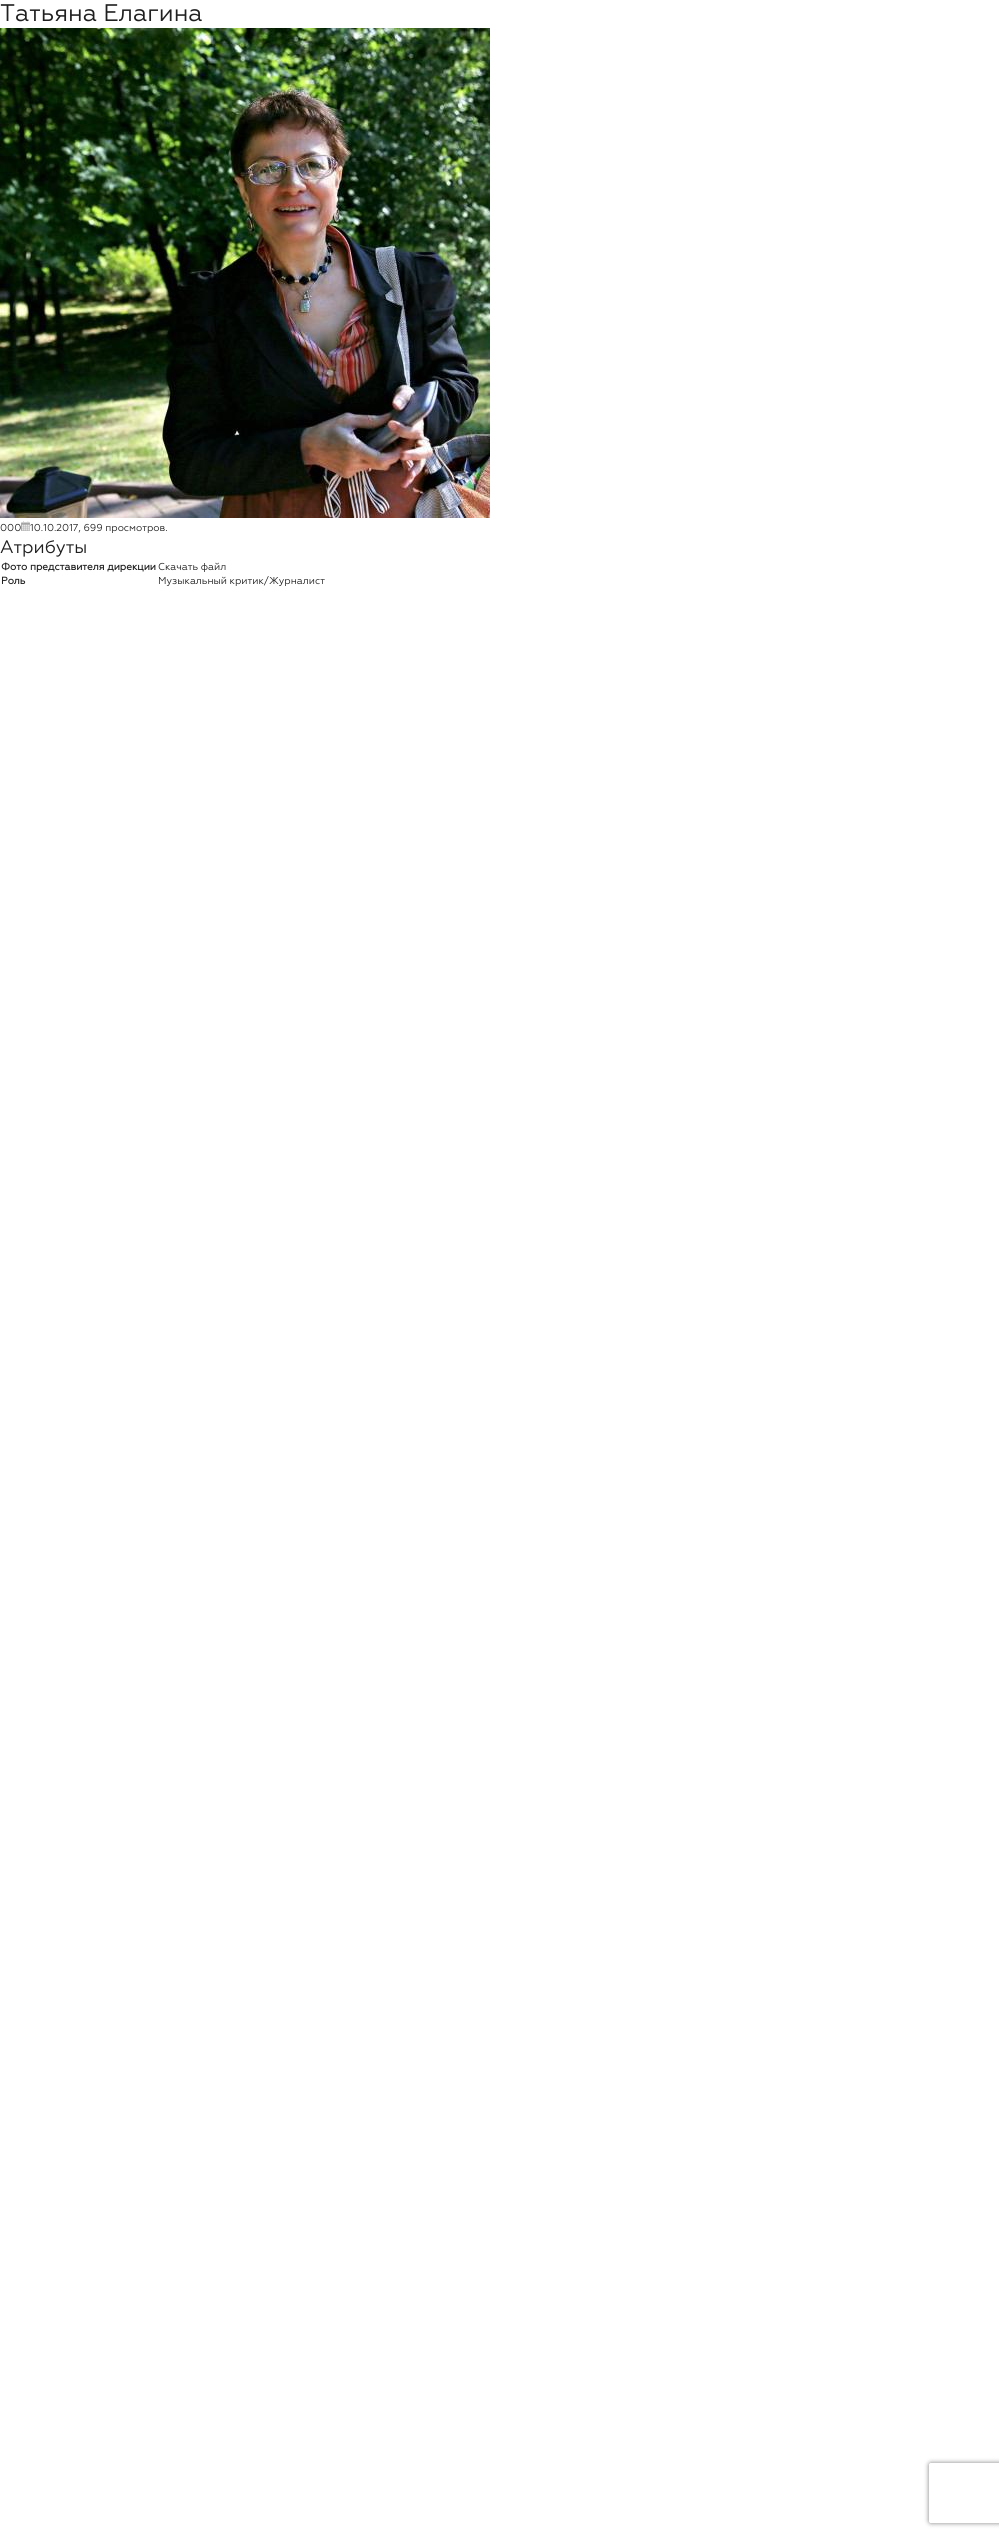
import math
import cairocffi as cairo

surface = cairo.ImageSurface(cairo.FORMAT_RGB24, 999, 2537)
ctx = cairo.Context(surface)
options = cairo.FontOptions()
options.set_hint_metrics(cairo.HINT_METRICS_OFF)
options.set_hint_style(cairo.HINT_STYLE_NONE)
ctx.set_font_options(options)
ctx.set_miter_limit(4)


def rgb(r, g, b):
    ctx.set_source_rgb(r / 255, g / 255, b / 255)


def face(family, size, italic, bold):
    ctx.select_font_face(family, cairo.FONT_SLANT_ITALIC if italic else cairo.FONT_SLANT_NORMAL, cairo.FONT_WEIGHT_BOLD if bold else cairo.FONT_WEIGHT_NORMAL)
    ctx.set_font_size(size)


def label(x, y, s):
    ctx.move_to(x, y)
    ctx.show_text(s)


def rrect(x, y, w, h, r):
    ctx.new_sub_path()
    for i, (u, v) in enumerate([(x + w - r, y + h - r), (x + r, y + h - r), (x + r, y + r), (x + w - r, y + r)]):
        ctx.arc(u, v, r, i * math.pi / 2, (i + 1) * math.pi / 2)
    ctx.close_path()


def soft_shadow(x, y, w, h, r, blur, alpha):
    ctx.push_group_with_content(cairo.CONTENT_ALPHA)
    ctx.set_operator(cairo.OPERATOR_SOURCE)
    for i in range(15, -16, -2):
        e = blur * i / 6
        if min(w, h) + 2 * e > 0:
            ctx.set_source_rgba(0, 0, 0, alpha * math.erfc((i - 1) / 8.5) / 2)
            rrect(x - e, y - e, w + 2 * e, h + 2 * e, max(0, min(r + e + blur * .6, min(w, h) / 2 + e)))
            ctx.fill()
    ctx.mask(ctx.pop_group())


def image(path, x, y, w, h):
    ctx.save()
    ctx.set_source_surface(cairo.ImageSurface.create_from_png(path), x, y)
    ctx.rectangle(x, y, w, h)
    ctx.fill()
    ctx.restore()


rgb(255, 255, 255)
ctx.paint()
face('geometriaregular', 24, 0, 0)
rgb(32, 32, 32)
label(0, 21, 'Татьяна Елагина')
image('image0.png', 0, 28, 490, 490)
face('geometriaregular', 10, 0, 0)
label(0, 531, '000')
image('image1.png', 21, 521, 9, 10)
label(30, 531, '10.10.2017, 699 просмотров.')
face('geometriaregular', 18, 0, 0)
label(0, 553, 'Атрибуты')
face('geometriaregular', 10, 0, 1)
label(1, 570, 'Фото представителя дирекции')
face('geometriaregular', 10, 0, 0)
label(158, 570, 'Скачать файл')
face('geometriaregular', 10, 0, 1)
label(1, 584, 'Роль')
face('geometriaregular', 10, 0, 0)
label(158, 584, 'Музыкальный критик/Журналист')
ctx.save()
ctx.set_fill_rule(cairo.FILL_RULE_EVEN_ODD)
ctx.new_path()
ctx.move_to(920, 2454)
ctx.line_to(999, 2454)
ctx.line_to(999, 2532)
ctx.line_to(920, 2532)
ctx.close_path()
ctx.move_to(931, 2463)
ctx.line_to(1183, 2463)
ctx.curve_to(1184, 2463, 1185, 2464, 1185, 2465)
ctx.line_to(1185, 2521)
ctx.curve_to(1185, 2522, 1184, 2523, 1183, 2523)
ctx.line_to(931, 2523)
ctx.curve_to(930, 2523, 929, 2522, 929, 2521)
ctx.line_to(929, 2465)
ctx.curve_to(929, 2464, 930, 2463, 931, 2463)
ctx.close_path()
ctx.clip()
rgb(128, 128, 128)
soft_shadow(929, 2463, 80, 60, 2, 2.5, 1)
ctx.restore()
surface.write_to_png('render.png')
